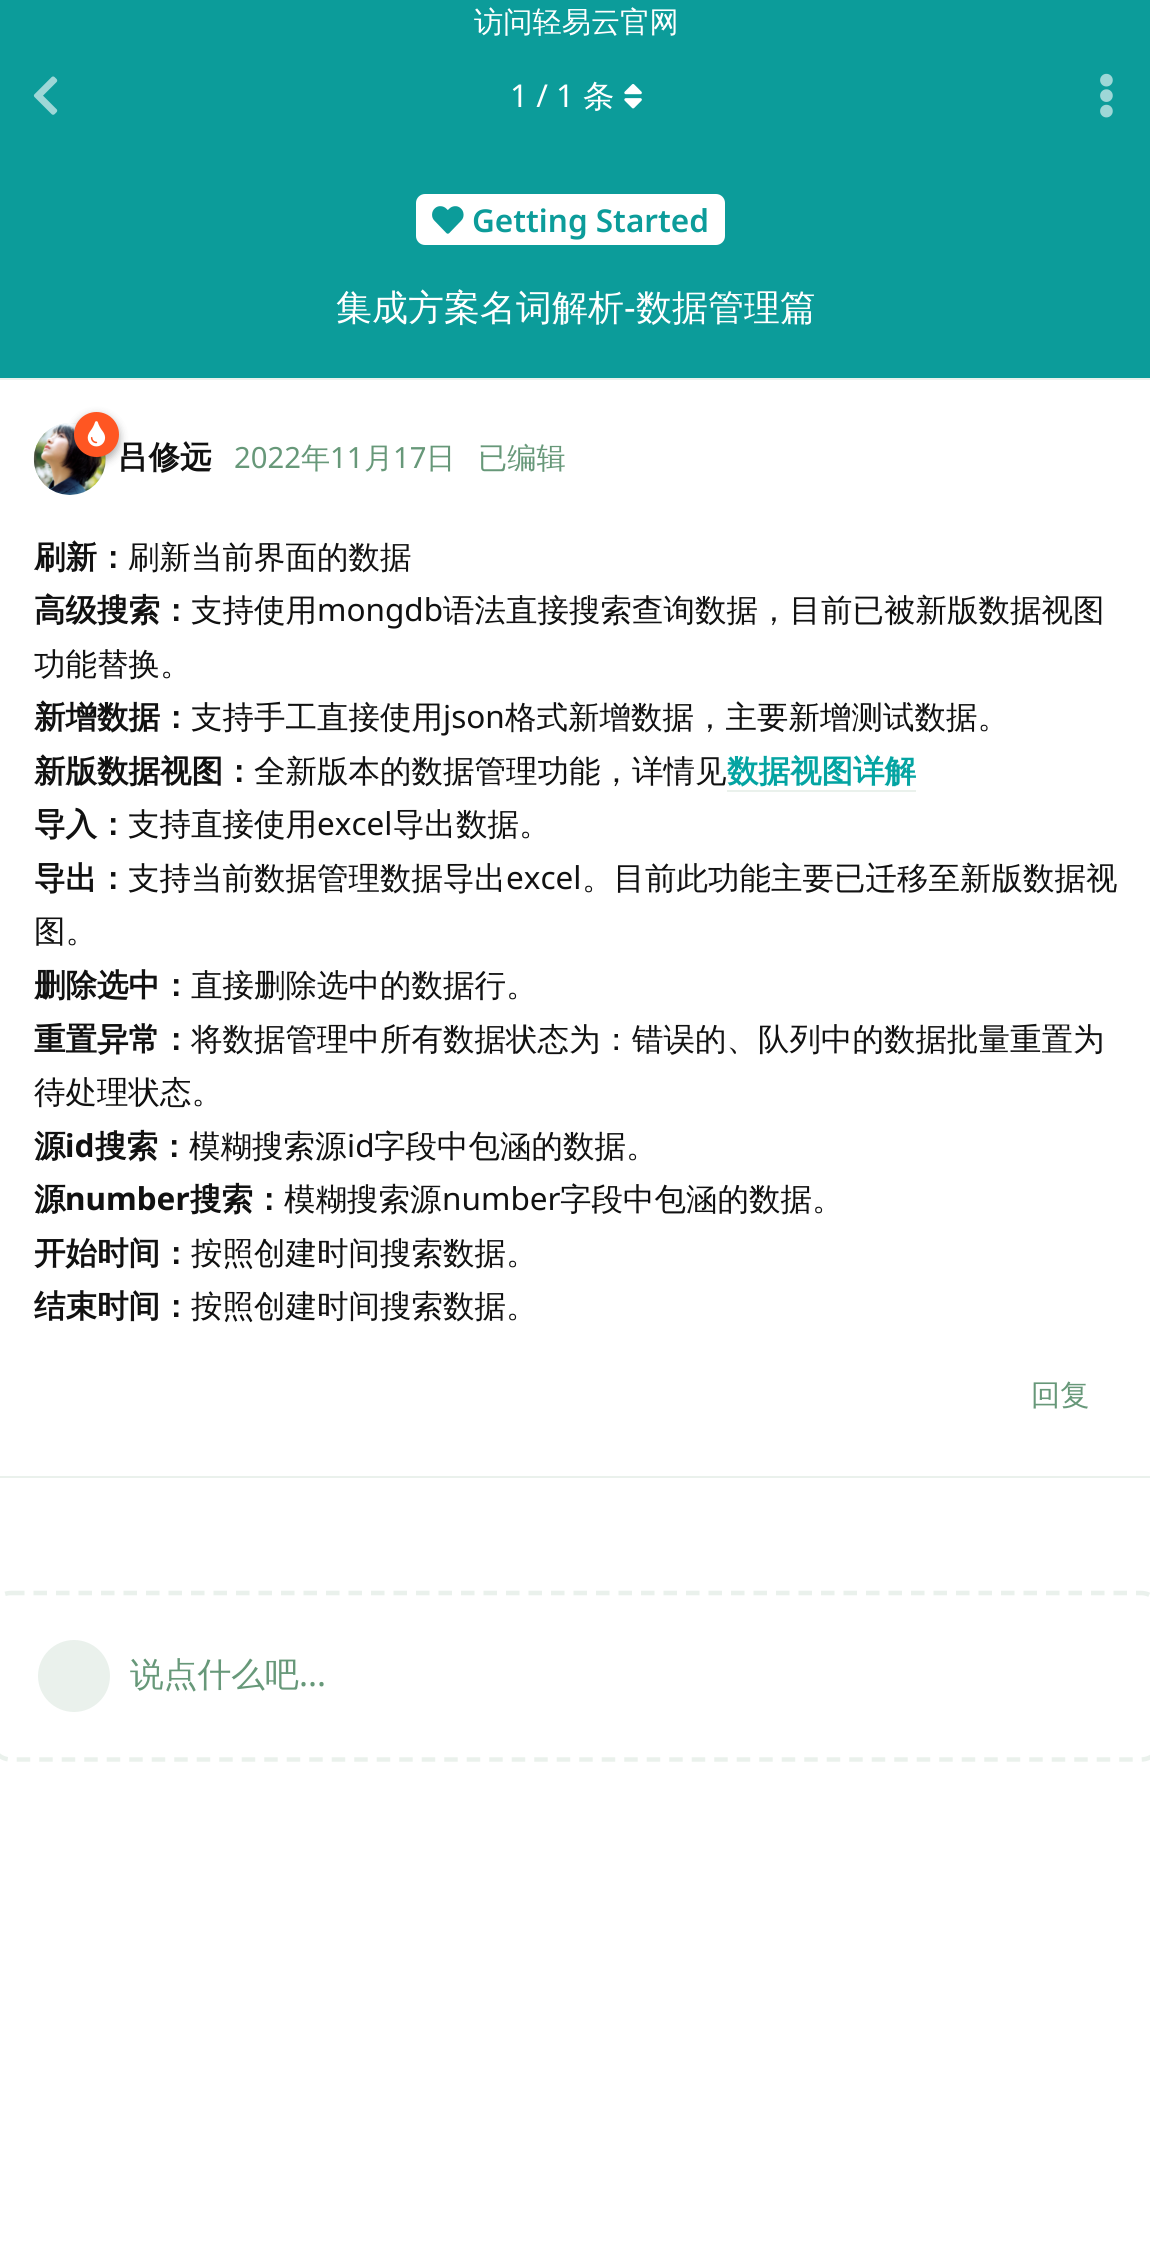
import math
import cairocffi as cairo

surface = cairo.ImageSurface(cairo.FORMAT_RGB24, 1150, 2256)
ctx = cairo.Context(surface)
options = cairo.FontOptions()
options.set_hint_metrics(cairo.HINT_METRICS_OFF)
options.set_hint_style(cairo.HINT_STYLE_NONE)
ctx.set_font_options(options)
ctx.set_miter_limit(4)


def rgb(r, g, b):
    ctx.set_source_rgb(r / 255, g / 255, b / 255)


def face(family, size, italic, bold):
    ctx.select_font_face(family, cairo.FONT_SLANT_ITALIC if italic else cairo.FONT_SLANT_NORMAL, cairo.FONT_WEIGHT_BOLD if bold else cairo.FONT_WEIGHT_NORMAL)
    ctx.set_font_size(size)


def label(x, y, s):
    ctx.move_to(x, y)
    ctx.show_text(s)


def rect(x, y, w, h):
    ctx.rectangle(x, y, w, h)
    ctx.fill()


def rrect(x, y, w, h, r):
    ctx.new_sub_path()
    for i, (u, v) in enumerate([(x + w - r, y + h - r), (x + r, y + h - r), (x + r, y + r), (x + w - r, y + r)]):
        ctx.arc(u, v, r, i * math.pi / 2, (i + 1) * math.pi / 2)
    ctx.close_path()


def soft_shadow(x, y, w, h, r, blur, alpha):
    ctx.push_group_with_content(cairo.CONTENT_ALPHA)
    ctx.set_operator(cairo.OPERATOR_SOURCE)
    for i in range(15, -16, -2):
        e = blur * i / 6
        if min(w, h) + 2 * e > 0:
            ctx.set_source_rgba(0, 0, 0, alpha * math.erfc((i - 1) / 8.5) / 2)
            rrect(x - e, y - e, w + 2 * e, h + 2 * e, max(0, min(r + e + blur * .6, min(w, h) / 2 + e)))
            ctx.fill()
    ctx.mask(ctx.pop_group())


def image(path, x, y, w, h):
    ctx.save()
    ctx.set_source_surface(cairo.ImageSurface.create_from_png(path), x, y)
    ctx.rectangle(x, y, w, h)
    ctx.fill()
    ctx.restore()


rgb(255, 255, 255)
ctx.paint()
rgb(12, 156, 154)
rect(0, 0, 1150, 45)
face('WenQuanYi Zen Hei Medium', 29.25, 0, 0)
rgb(255, 255, 255)
label(474, 32, '访问轻易云官网')
rgb(12, 156, 154)
rect(0, 45, 1150, 333)
image('image0.png', 33, 76, 25, 39)
rgb(234, 241, 236)
rect(0, 378, 1150, 2)
face('Noto Sans', 31.5, 0, 0)
rgb(255, 255, 255)
label(510, 107, '1 / 1')
face('WenQuanYi Zen Hei Medium', 31.5, 0, 0)
label(583, 107, '条')
image('image1.png', 624, 84, 18, 25)
image('image2.png', 1100, 73, 13, 45)
rgb(234, 241, 236)
rect(0, 1476, 1150, 2)
ctx.arc(70, 459, 36, 0, 2 * math.pi)
ctx.fill()
image('image4.png', 33, 423, 73, 72)
rgb(0, 0, 0)
soft_shadow(74, 416, 45, 45, 22.5, 4.5, 0.35)
rgb(255, 86, 34)
ctx.arc(96.5, 434.5, 22.5, 0, 2 * math.pi)
ctx.fill()
image('image3.png', 87, 421, 19, 26)
face('WenQuanYi Zen Hei', 31.5, 0, 1)
rgb(17, 17, 17)
label(117, 468, '吕修远')
face('Noto Sans', 29.25, 0, 0)
rgb(103, 152, 121)
label(234, 468, '2022')
face('WenQuanYi Zen Hei Medium', 29.25, 0, 0)
label(301, 468, '年')
face('Noto Sans', 29.25, 0, 0)
label(330, 468, '11')
face('WenQuanYi Zen Hei Medium', 29.25, 0, 0)
label(364, 468, '月')
face('Noto Sans', 29.25, 0, 0)
label(393, 468, '17')
face('WenQuanYi Zen Hei Medium', 29.25, 0, 0)
label(426, 468, '日')
label(478, 468, '已编辑')
face('WenQuanYi Zen Hei', 31.5, 0, 1)
rgb(17, 17, 17)
label(34, 568, '刷新：')
face('WenQuanYi Zen Hei Medium', 31.5, 0, 0)
label(128, 568, '刷新当前界面的数据')
face('WenQuanYi Zen Hei', 31.5, 0, 1)
label(34, 621, '高级搜索：')
face('WenQuanYi Zen Hei Medium', 31.5, 0, 0)
label(191, 621, '支持使用')
face('Noto Sans', 31.5, 0, 0)
label(317, 621, 'mongdb')
face('WenQuanYi Zen Hei Medium', 31.5, 0, 0)
label(443, 621, '语法直接搜索查询数据，目前已被新版数据视图')
label(34, 675, '功能替换。')
face('WenQuanYi Zen Hei', 31.5, 0, 1)
label(34, 728, '新增数据：')
face('WenQuanYi Zen Hei Medium', 31.5, 0, 0)
label(191, 728, '支持手工直接使用')
face('Noto Sans', 31.5, 0, 0)
label(443, 728, 'json')
face('WenQuanYi Zen Hei Medium', 31.5, 0, 0)
label(505, 728, '格式新增数据，主要新增测试数据。')
face('WenQuanYi Zen Hei', 31.5, 0, 1)
label(34, 782, '新版数据视图：')
face('WenQuanYi Zen Hei Medium', 31.5, 0, 0)
label(254, 782, '全新版本的数据管理功能，详情见')
face('WenQuanYi Zen Hei', 31.5, 0, 1)
rgb(4, 164, 162)
label(727, 782, '数据视图详解')
rgb(234, 241, 236)
rect(727, 790, 189, 2)
rgb(17, 17, 17)
label(34, 835, '导入：')
face('WenQuanYi Zen Hei Medium', 31.5, 0, 0)
label(128, 835, '支持直接使用')
face('Noto Sans', 31.5, 0, 0)
label(317, 835, 'excel')
face('WenQuanYi Zen Hei Medium', 31.5, 0, 0)
label(393, 835, '导出数据。')
face('WenQuanYi Zen Hei', 31.5, 0, 1)
label(34, 889, '导出：')
face('WenQuanYi Zen Hei Medium', 31.5, 0, 0)
label(128, 889, '支持当前数据管理数据导出')
face('Noto Sans', 31.5, 0, 0)
label(506, 889, 'excel')
face('WenQuanYi Zen Hei Medium', 31.5, 0, 0)
label(582, 889, '。目前此功能主要已迁移至新版数据视')
label(34, 942, '图。')
face('WenQuanYi Zen Hei', 31.5, 0, 1)
label(34, 996, '删除选中：')
face('WenQuanYi Zen Hei Medium', 31.5, 0, 0)
label(191, 996, '直接删除选中的数据行。')
face('WenQuanYi Zen Hei', 31.5, 0, 1)
label(34, 1050, '重置异常：')
face('WenQuanYi Zen Hei Medium', 31.5, 0, 0)
label(191, 1050, '将数据管理中所有数据状态为：错误的、队列中的数据批量重置为')
label(34, 1103, '待处理状态。')
face('WenQuanYi Zen Hei', 31.5, 0, 1)
label(34, 1157, '源')
face('Noto Sans', 31.5, 0, 1)
label(65, 1157, 'id')
face('WenQuanYi Zen Hei', 31.5, 0, 1)
label(95, 1157, '搜索：')
face('WenQuanYi Zen Hei Medium', 31.5, 0, 0)
label(189, 1157, '模糊搜索源')
face('Noto Sans', 31.5, 0, 0)
label(347, 1157, 'id')
face('WenQuanYi Zen Hei Medium', 31.5, 0, 0)
label(374, 1157, '字段中包涵的数据。')
face('WenQuanYi Zen Hei', 31.5, 0, 1)
label(34, 1210, '源')
face('Noto Sans', 31.5, 0, 1)
label(65, 1210, 'number')
face('WenQuanYi Zen Hei', 31.5, 0, 1)
label(190, 1210, '搜索：')
face('WenQuanYi Zen Hei Medium', 31.5, 0, 0)
label(284, 1210, '模糊搜索源')
face('Noto Sans', 31.5, 0, 0)
label(442, 1210, 'number')
face('WenQuanYi Zen Hei Medium', 31.5, 0, 0)
label(560, 1210, '字段中包涵的数据。')
face('WenQuanYi Zen Hei', 31.5, 0, 1)
label(34, 1264, '开始时间：')
face('WenQuanYi Zen Hei Medium', 31.5, 0, 0)
label(191, 1264, '按照创建时间搜索数据。')
face('WenQuanYi Zen Hei', 31.5, 0, 1)
label(34, 1317, '结束时间：')
face('WenQuanYi Zen Hei Medium', 31.5, 0, 0)
label(191, 1317, '按照创建时间搜索数据。')
face('WenQuanYi Zen Hei Medium', 29.25, 0, 0)
rgb(103, 152, 121)
label(1031, 1405, '回复')
ctx.new_path()
ctx.move_to(11, 1593)
ctx.line_to(1141, 1593)
ctx.curve_to(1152, 1593, 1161, 1602, 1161, 1613)
ctx.line_to(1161, 1739)
ctx.curve_to(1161, 1750.5, 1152, 1759.5, 1141, 1759.5)
ctx.line_to(11, 1759.5)
ctx.curve_to(0, 1759.5, -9, 1750.5, -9, 1739)
ctx.line_to(-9, 1613)
ctx.curve_to(-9, 1602, 0, 1593, 11, 1593)
ctx.close_path()
rgb(234, 241, 236)
ctx.set_line_width(4.5)
ctx.set_dash([13.5, 9])
ctx.stroke()
ctx.arc(74, 1676, 36, 0, 2 * math.pi)
ctx.fill()
face('WenQuanYi Zen Hei Medium', 33.75, 0, 0)
rgb(103, 152, 121)
label(130, 1686, '说点什么吧')
face('Noto Sans', 33.75, 0, 0)
label(299, 1686, '...')
rgb(255, 255, 255)
rrect(416, 194, 309, 51, 9)
ctx.fill()
image('image5.png', 432, 206, 32, 28)
face('Noto Sans SemiBold', 31.5, 0, 0)
rgb(12, 156, 154)
label(472, 232, 'Getting Started')
face('WenQuanYi Zen Hei Medium', 36, 0, 0)
rgb(255, 255, 255)
label(336, 320, '集成方案名词解析')
face('Noto Sans', 36, 0, 0)
label(624, 320, '-')
face('WenQuanYi Zen Hei Medium', 36, 0, 0)
label(636, 320, '数据管理篇')
surface.write_to_png('render.png')
